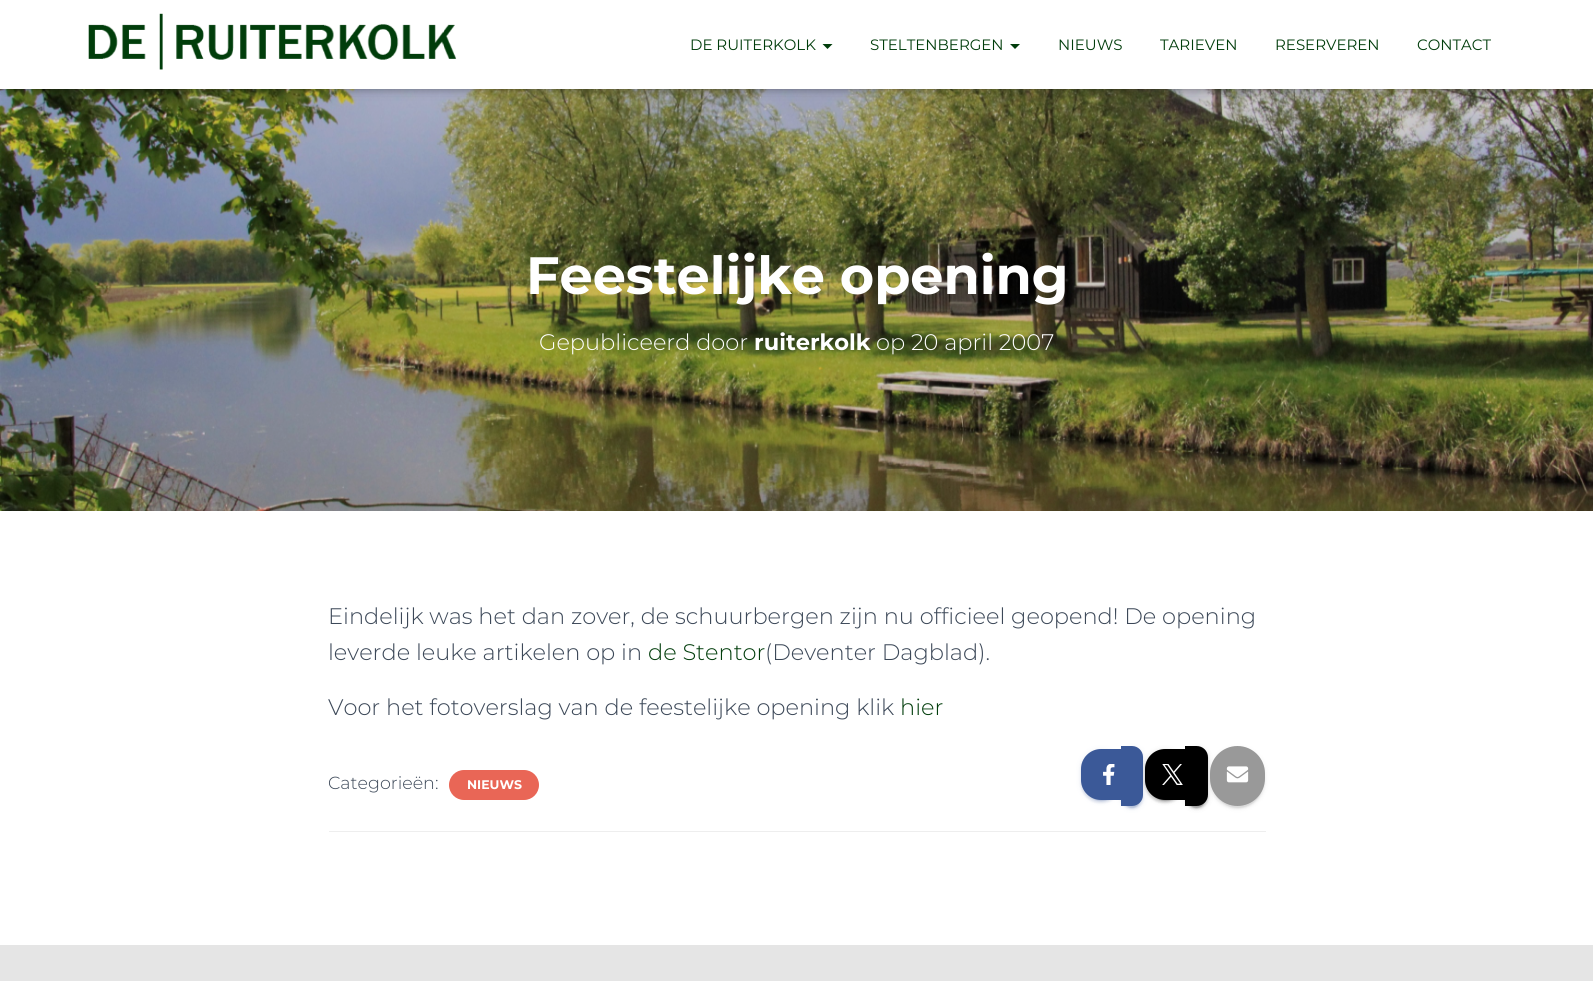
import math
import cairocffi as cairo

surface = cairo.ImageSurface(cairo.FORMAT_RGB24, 1593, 981)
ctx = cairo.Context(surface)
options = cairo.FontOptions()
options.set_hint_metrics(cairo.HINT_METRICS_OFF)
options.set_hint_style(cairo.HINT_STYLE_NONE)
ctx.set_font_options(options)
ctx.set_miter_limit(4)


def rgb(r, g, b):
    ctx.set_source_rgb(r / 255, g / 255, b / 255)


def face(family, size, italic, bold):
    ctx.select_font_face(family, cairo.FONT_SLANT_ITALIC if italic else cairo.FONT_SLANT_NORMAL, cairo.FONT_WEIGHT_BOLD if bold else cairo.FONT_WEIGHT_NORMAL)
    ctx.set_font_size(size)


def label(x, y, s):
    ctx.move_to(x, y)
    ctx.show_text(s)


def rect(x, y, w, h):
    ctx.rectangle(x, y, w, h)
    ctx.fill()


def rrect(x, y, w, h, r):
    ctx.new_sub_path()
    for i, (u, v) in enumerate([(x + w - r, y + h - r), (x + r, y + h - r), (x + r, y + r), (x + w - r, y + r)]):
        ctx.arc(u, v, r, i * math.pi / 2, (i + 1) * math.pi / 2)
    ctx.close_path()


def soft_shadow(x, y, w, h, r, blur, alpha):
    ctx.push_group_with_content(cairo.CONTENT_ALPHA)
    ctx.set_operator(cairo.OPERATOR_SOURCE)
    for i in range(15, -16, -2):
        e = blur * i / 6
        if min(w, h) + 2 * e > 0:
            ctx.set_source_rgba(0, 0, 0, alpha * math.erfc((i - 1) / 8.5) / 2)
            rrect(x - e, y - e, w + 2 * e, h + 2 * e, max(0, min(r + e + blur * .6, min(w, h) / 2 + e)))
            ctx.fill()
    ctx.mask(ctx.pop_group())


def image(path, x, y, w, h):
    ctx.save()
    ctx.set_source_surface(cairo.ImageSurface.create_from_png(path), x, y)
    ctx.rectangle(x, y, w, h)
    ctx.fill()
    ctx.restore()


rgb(229, 229, 229)
ctx.paint()
image('image1.png', 0, 89, 1593, 422)
rgb(0, 0, 0)
soft_shadow(3, 8, 1588, 83, 0, 3, 0.1)
soft_shadow(0, 1, 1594, 89, 0, 6, 0.12)
soft_shadow(8, 9, 1578, 74, 0, 6, 0.42)
rgb(255, 255, 255)
rect(0, 0, 1593, 89)
image('image0.png', 88, 13, 369, 57)
face('Montserrat', 15, 0, 0)
rgb(1, 61, 11)
label(690, 50, 'DE RUITERKOLK')
ctx.new_path()
ctx.move_to(822.5, 44)
ctx.line_to(832.5, 44)
ctx.line_to(827.5, 49)
ctx.close_path()
ctx.fill()
label(870, 50, 'STELTENBERGEN')
ctx.new_path()
ctx.move_to(1010, 44)
ctx.line_to(1020, 44)
ctx.line_to(1015, 49)
ctx.close_path()
ctx.fill()
label(1058, 50, 'NIEUWS')
label(1160, 50, 'TARIEVEN')
label(1275, 50, 'RESERVEREN')
label(1417, 50, 'CONTACT')
face('Montserrat', 52.5, 0, 1)
rgb(255, 255, 255)
label(526, 294, 'Feestelijke opening')
face('Montserrat Light', 22.5, 0, 0)
label(539, 350, 'Gepubliceerd door')
face('Montserrat', 22.5, 0, 1)
label(754, 350, 'ruiterkolk')
face('Montserrat Light', 22.5, 0, 0)
label(876, 350, 'op 20 april 2007')
rect(0, 511, 1593, 434)
rgb(60, 72, 88)
label(328, 624, 'Eindelijk was het dan zover, de schuurbergen zijn nu officieel geopend! De opening')
label(328, 660, 'leverde leuke artikelen op in')
rgb(1, 61, 11)
label(648, 660, 'de Stentor')
rgb(60, 72, 88)
label(765, 660, '(Deventer Dagblad).')
label(328, 715, 'Voor het fotoverslag van de feestelijke opening klik')
rgb(1, 61, 11)
label(900, 715, 'hier')
face('Montserrat Light', 17.5, 0, 0)
rgb(60, 72, 88)
label(328, 789, 'Categorieën:')
rgb(233, 102, 86)
rrect(449, 770, 90, 30, 15)
ctx.fill()
face('Montserrat', 12.5, 0, 1)
rgb(255, 255, 255)
label(467, 789, 'NIEUWS')
rgb(59, 89, 152)
soft_shadow(1081, 750, 40, 51, 20, 3, 0.12)
soft_shadow(1081, 751, 40, 52, 20, 1, 0.14)
soft_shadow(1084, 755, 35, 46, 17.5, 0.5, 0.2)
rgb(59, 89, 152)
ctx.new_path()
ctx.move_to(1101, 749)
ctx.line_to(1121, 749)
ctx.line_to(1121, 800)
ctx.line_to(1101, 800)
ctx.curve_to(1090, 800, 1081, 791, 1081, 780)
ctx.line_to(1081, 769)
ctx.curve_to(1081, 758, 1090, 749, 1101, 749)
ctx.close_path()
ctx.fill()
rgb(59, 89, 152)
soft_shadow(1121, 748, 22, 60, 11, 3, 0.12)
soft_shadow(1121, 749, 22, 60, 11, 1, 0.14)
soft_shadow(1124, 753, 16, 55, 8, 0.5, 0.2)
rgb(59, 89, 152)
ctx.new_path()
ctx.move_to(1121, 746)
ctx.line_to(1132, 746)
ctx.curve_to(1138, 746, 1143, 751, 1143, 757)
ctx.line_to(1143, 795)
ctx.curve_to(1143, 801, 1138, 806, 1132, 806)
ctx.line_to(1121, 806)
ctx.close_path()
ctx.fill()
rgb(0, 0, 0)
soft_shadow(1145, 750, 40, 51, 20, 3, 0.12)
soft_shadow(1145, 751, 40, 52, 20, 1, 0.14)
soft_shadow(1148, 755, 35, 46, 17.5, 0.5, 0.2)
rgb(0, 0, 0)
ctx.new_path()
ctx.move_to(1165, 749)
ctx.line_to(1185, 749)
ctx.line_to(1185, 800)
ctx.line_to(1165, 800)
ctx.curve_to(1154, 800, 1145, 791, 1145, 780)
ctx.line_to(1145, 769)
ctx.curve_to(1145, 758, 1154, 749, 1165, 749)
ctx.close_path()
ctx.fill()
rgb(0, 0, 0)
soft_shadow(1185, 748, 23, 60, 11.5, 3, 0.12)
soft_shadow(1185, 749, 23, 60, 11.5, 1, 0.14)
soft_shadow(1188, 753, 17, 55, 8.5, 0.5, 0.2)
rgb(0, 0, 0)
ctx.new_path()
ctx.move_to(1185, 746)
ctx.line_to(1196.5, 746)
ctx.curve_to(1203, 746, 1208, 751, 1208, 757.5)
ctx.line_to(1208, 794.5)
ctx.curve_to(1208, 801, 1203, 806, 1196.5, 806)
ctx.line_to(1185, 806)
ctx.close_path()
ctx.fill()
rgb(153, 153, 153)
soft_shadow(1210, 748, 55, 60, 27.5, 3, 0.12)
soft_shadow(1210, 749, 55, 60, 27.5, 1, 0.14)
soft_shadow(1213, 753, 50, 55, 25, 0.5, 0.2)
rgb(153, 153, 153)
rrect(1210, 746, 55, 60, 27.5)
ctx.fill()
image('image2.png', 1103, 764, 12, 21)
image('image3.png', 1162, 764, 21, 21)
image('image4.png', 1226, 766, 23, 17)
rgb(238, 238, 238)
rect(329, 831, 937, 1)
surface.write_to_png('render.png')
